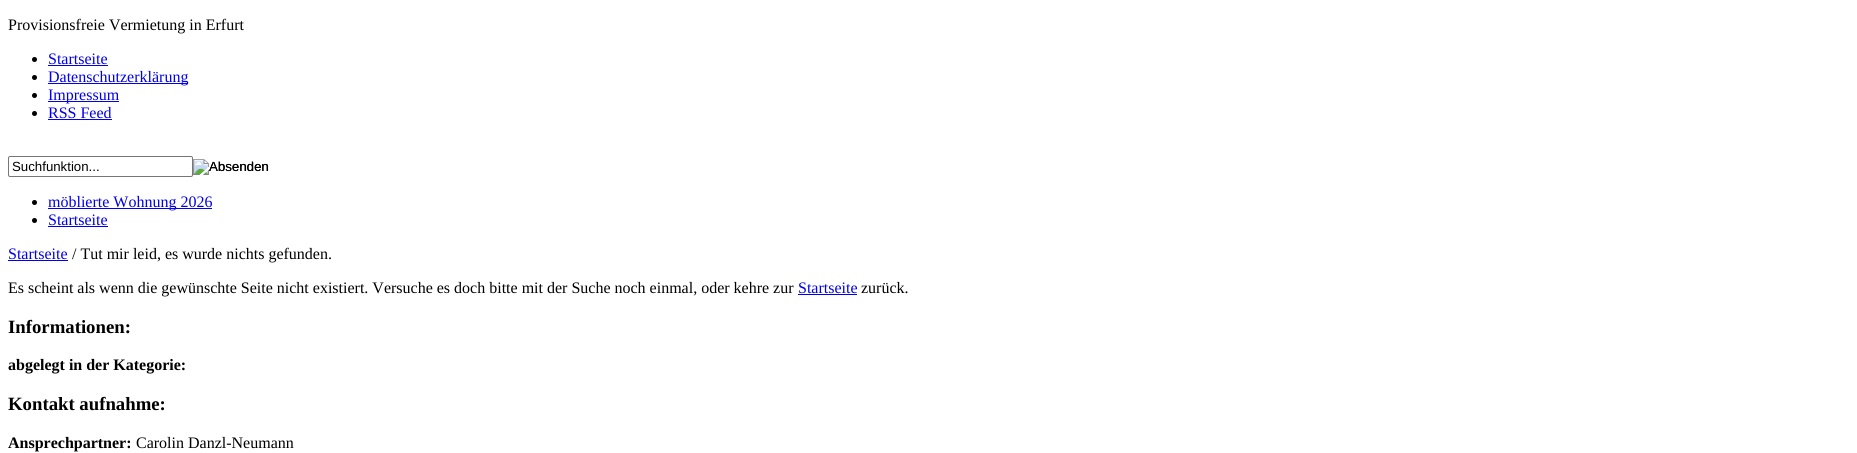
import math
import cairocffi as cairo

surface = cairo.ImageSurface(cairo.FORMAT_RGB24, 1857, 453)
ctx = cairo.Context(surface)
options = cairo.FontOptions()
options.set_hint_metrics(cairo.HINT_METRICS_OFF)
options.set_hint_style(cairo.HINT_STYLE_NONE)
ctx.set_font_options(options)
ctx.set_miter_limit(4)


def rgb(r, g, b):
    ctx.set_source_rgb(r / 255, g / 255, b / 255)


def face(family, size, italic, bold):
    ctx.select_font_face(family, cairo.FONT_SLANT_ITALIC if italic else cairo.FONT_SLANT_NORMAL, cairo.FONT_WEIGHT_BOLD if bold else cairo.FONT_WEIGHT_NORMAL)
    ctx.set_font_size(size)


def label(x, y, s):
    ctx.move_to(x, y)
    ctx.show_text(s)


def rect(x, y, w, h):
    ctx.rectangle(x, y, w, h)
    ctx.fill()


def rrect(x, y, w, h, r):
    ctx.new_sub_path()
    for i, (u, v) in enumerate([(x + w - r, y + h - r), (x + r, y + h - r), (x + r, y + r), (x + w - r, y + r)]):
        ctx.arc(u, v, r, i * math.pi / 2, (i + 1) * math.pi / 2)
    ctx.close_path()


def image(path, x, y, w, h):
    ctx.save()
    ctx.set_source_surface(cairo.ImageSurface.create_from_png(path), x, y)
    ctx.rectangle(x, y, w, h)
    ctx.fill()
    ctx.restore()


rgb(255, 255, 255)
ctx.paint()
face('Liberation Serif', 16, 0, 0)
rgb(0, 0, 0)
label(8, 30, 'Provisionsfreie Vermietung in Erfurt')
ctx.new_path()
ctx.arc(34.5, 59.5, 2.5, 0, 2 * math.pi)
ctx.fill()
rgb(0, 0, 238)
label(48, 64, 'Startseite')
rect(48, 65, 60, 1)
rgb(0, 0, 0)
ctx.new_path()
ctx.arc(34.5, 77.5, 2.5, 0, 2 * math.pi)
ctx.fill()
rgb(0, 0, 238)
rect(48, 83, 140, 1)
label(48, 82, 'Datenschutzerklärung')
rgb(0, 0, 0)
ctx.new_path()
ctx.arc(34.5, 95.5, 2.5, 0, 2 * math.pi)
ctx.fill()
rgb(0, 0, 238)
rect(48, 101, 71, 1)
label(48, 100, 'Impressum')
rgb(0, 0, 0)
ctx.new_path()
ctx.arc(34.5, 113.5, 2.5, 0, 2 * math.pi)
ctx.fill()
rgb(0, 0, 238)
label(48, 118, 'RSS Feed')
rect(48, 119, 64, 1)
rrect(8.5, 156.5, 184, 20, 1.5)
rgb(118, 118, 118)
ctx.set_line_width(1)
ctx.stroke()
face('Liberation Sans', 13.25, 0, 0)
rgb(0, 0, 0)
label(12, 171, 'Suchfunktion...')
image('image0.png', 193, 159, 76, 16)
label(209, 171, 'Absenden')
ctx.new_path()
ctx.arc(34.5, 202.5, 2.5, 0, 2 * math.pi)
ctx.fill()
rgb(0, 0, 238)
rect(48, 208, 164, 1)
face('Liberation Serif', 16, 0, 0)
label(48, 207, 'möblierte Wohnung 2026')
rgb(0, 0, 0)
ctx.new_path()
ctx.arc(34.5, 220.5, 2.5, 0, 2 * math.pi)
ctx.fill()
rgb(0, 0, 238)
label(48, 225, 'Startseite')
rect(48, 226, 60, 1)
label(8, 259, 'Startseite')
rect(8, 260, 60, 1)
rgb(0, 0, 0)
label(72, 259, '/ Tut mir leid, es wurde nichts gefunden.')
label(8, 293, 'Es scheint als wenn die gewünschte Seite nicht existiert. Versuche es doch bitte mit der Suche noch einmal, oder kehre zur')
rgb(0, 0, 238)
label(798, 293, 'Startseite')
rect(798, 294, 59, 1)
rgb(0, 0, 0)
label(861, 293, 'zurück.')
face('Liberation Serif', 18.75, 0, 1)
label(8, 333, 'Informationen:')
face('Liberation Serif', 16, 0, 1)
label(8, 370, 'abgelegt in der Kategorie:')
face('Liberation Serif', 18.75, 0, 1)
label(8, 410, 'Kontakt aufnahme:')
face('Liberation Serif', 16, 0, 1)
label(8, 448, 'Ansprechpartner:')
face('Liberation Serif', 16, 0, 0)
label(136, 448, 'Carolin Danzl-Neumann')
surface.write_to_png('render.png')
